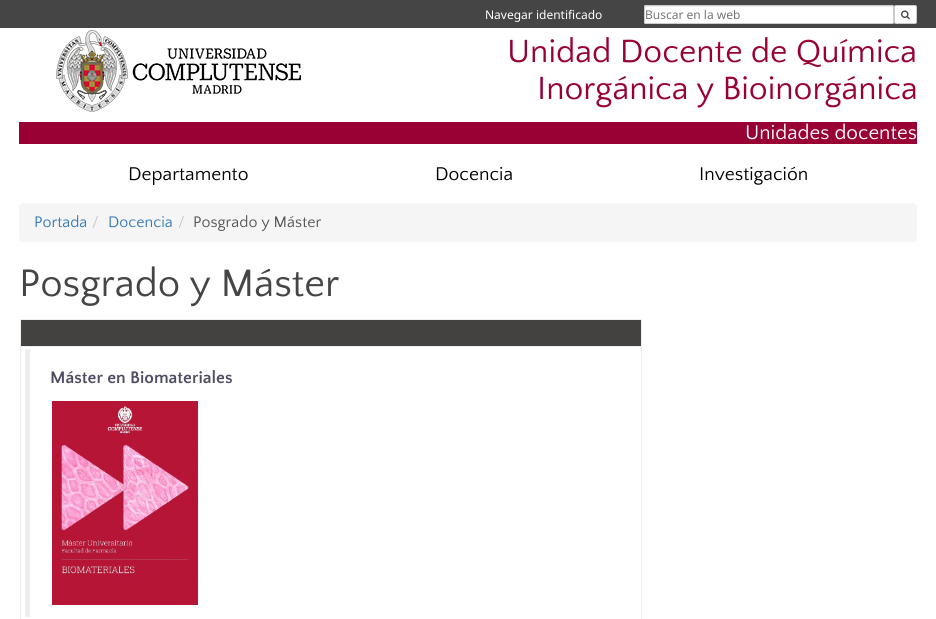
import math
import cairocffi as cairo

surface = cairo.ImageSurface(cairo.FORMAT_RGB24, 936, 619)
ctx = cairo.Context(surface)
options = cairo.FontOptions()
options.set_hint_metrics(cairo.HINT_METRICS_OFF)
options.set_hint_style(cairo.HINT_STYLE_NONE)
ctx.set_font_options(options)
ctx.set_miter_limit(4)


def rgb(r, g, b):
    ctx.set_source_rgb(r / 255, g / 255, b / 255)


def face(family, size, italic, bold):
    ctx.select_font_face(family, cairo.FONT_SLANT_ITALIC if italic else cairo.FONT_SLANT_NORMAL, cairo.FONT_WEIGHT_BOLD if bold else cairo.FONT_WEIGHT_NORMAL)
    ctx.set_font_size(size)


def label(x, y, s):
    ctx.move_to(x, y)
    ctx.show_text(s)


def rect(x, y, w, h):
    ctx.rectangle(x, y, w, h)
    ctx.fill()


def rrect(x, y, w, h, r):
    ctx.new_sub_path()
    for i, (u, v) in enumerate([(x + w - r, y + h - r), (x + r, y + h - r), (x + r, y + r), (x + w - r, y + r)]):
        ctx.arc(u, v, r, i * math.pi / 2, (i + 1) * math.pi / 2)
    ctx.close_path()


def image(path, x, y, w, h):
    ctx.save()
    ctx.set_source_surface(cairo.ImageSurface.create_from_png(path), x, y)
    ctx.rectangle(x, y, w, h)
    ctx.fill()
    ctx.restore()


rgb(255, 255, 255)
ctx.paint()
rgb(69, 69, 69)
rect(0, 0, 936, 28)
face('Noto Sans', 12, 0, 0)
rgb(255, 255, 255)
label(485, 19, 'Navegar identificado')
rrect(644, 5, 250, 19, 2)
ctx.fill()
rgb(236, 236, 236)
ctx.set_fill_rule(cairo.FILL_RULE_EVEN_ODD)
ctx.new_path()
ctx.move_to(646, 7)
ctx.line_to(892, 7)
ctx.line_to(893, 8)
ctx.line_to(893, 6)
ctx.line_to(646, 6)
ctx.curve_to(645, 6, 645, 7, 645, 8)
ctx.close_path()
ctx.move_to(893, 22)
ctx.line_to(893, 22)
ctx.close_path()
ctx.fill()
rrect(644.5, 5.5, 249, 18, 1.5)
rgb(204, 204, 204)
ctx.set_line_width(1)
ctx.stroke()
rgb(117, 117, 117)
label(645, 19, 'Buscar en la web')
rgb(255, 255, 255)
rrect(894.5, 5.5, 22, 18, 1.5)
ctx.fill_preserve()
rgb(204, 204, 204)
ctx.stroke()
image('image0.png', 901, 10, 9, 10)
image('image1.png', 56, 30, 245, 82)
face('Quattrocento Sans', 33.6, 0, 0)
rgb(153, 0, 51)
label(507, 62, 'Unidad Docente de Química')
label(537, 99, 'Inorgánica y Bioinorgánica')
rect(19, 122, 898, 22)
face('Quattrocento Sans', 20.75, 0, 0)
rgb(255, 255, 255)
label(745, 139, 'Unidades docentes')
face('Quattrocento Sans', 19.25, 0, 0)
rgb(0, 0, 0)
label(128, 180, 'Departamento')
label(435, 180, 'Docencia')
label(699, 180, 'Investigación')
rgb(245, 245, 245)
rrect(19, 203, 898, 39, 4)
ctx.fill()
face('Quattrocento Sans', 16, 0, 0)
rgb(51, 122, 183)
label(34, 227, 'Portada')
rgb(204, 204, 204)
label(92, 227, '/')
rgb(51, 122, 183)
label(108, 227, 'Docencia')
rgb(204, 204, 204)
label(178, 227, '/')
rgb(85, 83, 84)
label(193, 227, 'Posgrado y Máster')
face('Quattrocento Sans', 40, 0, 0)
rgb(69, 69, 69)
label(19, 296, 'Posgrado y Máster')
rgb(68, 65, 65)
rect(21, 320, 620, 26)
rgb(238, 238, 238)
rect(20, 319, 622, 1)
rect(20, 346, 622, 1)
rect(641, 346, 1, 273)
rect(641, 319, 1, 28)
rect(20, 346, 1, 273)
rect(20, 319, 1, 28)
rect(25, 349, 5, 268)
face('Quattrocento Sans', 17.5, 0, 1)
rgb(78, 77, 100)
label(50, 383, 'Máster en Biomateriales')
image('image2.png', 52, 401, 146, 204)
surface.write_to_png('render.png')
